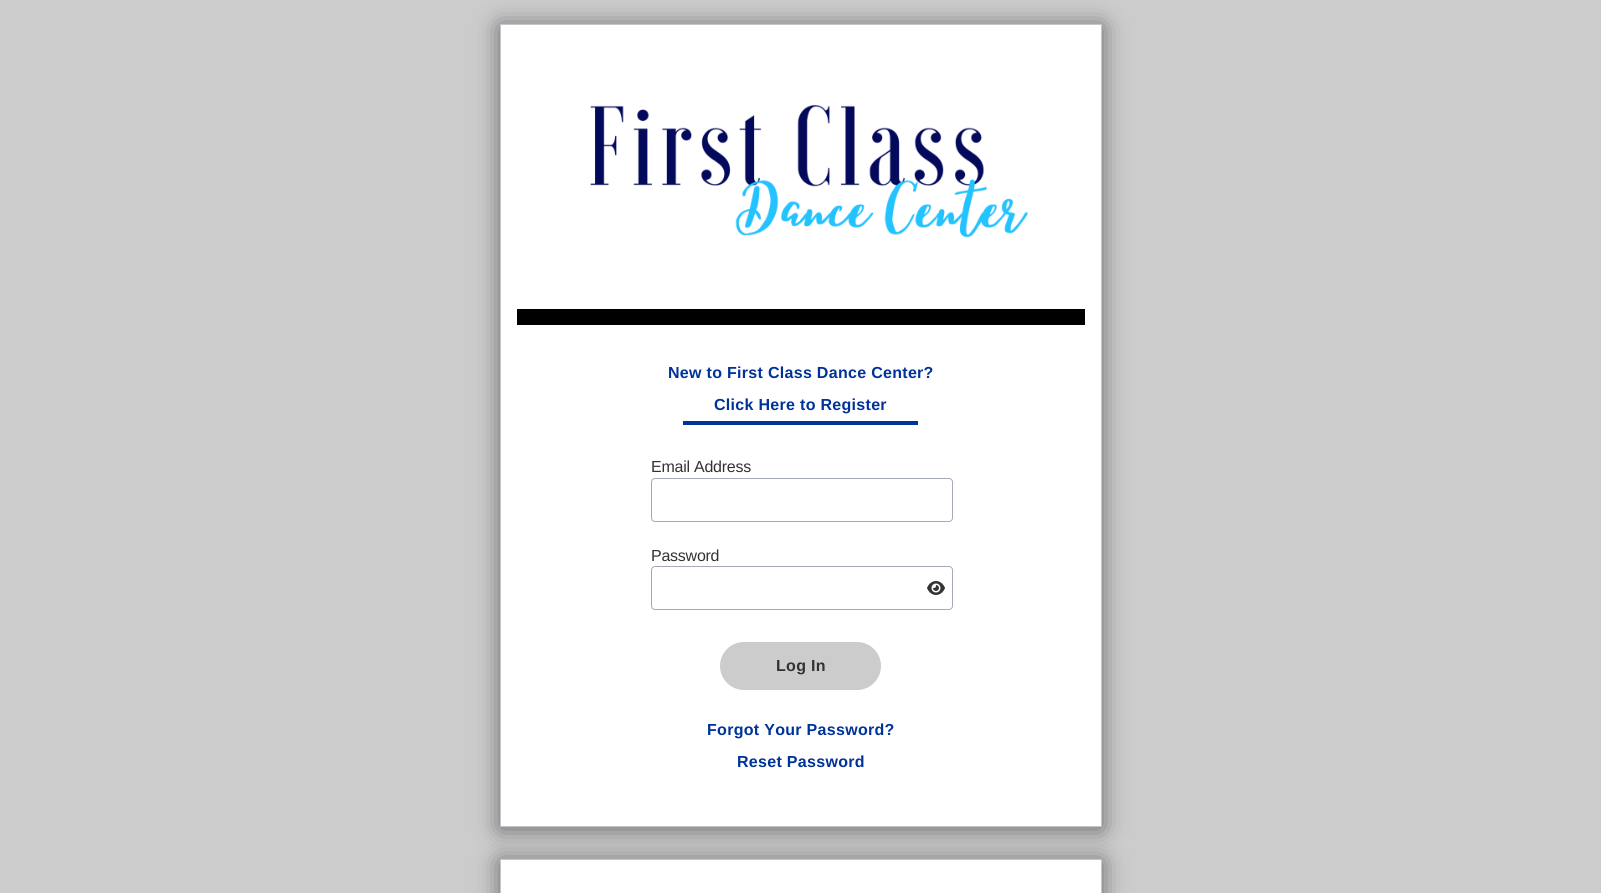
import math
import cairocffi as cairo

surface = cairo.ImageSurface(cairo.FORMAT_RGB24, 1601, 893)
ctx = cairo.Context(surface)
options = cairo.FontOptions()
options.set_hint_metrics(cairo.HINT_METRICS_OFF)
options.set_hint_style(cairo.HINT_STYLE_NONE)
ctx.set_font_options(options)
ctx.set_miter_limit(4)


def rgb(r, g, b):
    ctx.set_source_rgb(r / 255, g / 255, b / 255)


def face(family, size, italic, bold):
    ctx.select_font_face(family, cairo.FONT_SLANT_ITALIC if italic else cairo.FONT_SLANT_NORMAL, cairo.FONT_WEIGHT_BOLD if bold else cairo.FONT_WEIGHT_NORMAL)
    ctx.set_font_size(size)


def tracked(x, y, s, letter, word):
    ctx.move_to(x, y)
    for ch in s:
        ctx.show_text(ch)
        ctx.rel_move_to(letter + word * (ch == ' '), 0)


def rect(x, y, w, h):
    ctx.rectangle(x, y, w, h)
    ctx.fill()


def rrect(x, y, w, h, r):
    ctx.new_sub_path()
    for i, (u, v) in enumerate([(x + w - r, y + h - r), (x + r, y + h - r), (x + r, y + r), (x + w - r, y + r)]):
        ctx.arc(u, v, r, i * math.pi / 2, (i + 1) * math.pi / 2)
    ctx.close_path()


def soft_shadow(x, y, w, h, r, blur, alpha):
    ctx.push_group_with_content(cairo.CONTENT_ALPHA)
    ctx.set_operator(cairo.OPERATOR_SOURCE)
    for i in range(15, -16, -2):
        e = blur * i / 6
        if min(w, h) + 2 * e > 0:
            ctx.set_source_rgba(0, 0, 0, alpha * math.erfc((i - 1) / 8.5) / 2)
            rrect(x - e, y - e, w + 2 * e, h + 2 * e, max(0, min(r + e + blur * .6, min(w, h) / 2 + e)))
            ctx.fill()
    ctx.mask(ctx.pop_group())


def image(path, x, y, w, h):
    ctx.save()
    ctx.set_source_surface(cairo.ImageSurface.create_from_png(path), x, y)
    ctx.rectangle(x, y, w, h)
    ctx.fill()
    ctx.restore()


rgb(204, 204, 204)
ctx.paint()
rgb(0, 0, 0)
soft_shadow(500, 26, 602, 803, 0, 12, 0.5)
rgb(255, 255, 255)
ctx.rectangle(500.5, 24.5, 601, 802)
ctx.fill_preserve()
rgb(194, 198, 204)
ctx.set_line_width(1)
ctx.stroke()
image('image0.png', 590, 105, 438, 133)
rgb(0, 0, 0)
rect(517, 309, 568, 16)
face('Liberation Sans', 16, 0, 1)
rgb(0, 51, 153)
tracked(668, 378, 'New to First Class Dance Center?', 0.3, 0)
tracked(714, 410, 'Click Here to Register', 0.3, 0)
rect(683, 421, 235, 4)
face('Liberation Sans', 16, 0, 0)
rgb(51, 51, 51)
tracked(651, 472, 'Email Address', -0.25, 0)
rrect(651.5, 478.5, 301, 43, 3.5)
rgb(165, 170, 184)
ctx.stroke()
rgb(51, 51, 51)
tracked(651, 561, 'Password', -0.25, 0)
rrect(651.5, 566.5, 301, 43, 3.5)
rgb(165, 170, 184)
ctx.stroke()
image('image1.png', 927, 581, 18, 14)
rgb(204, 204, 204)
rrect(720, 642, 161, 48, 24)
ctx.fill()
face('Liberation Sans', 16, 0, 1)
rgb(51, 51, 51)
tracked(776, 671, 'Log In', 0.3, 0)
rgb(0, 51, 153)
tracked(707, 735, 'Forgot Your Password?', 0.3, 0)
tracked(737, 767, 'Reset Password', 0.3, 0)
rgb(0, 0, 0)
soft_shadow(500, 861, 602, 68, 0, 12, 0.5)
rgb(255, 255, 255)
ctx.rectangle(500.5, 859.5, 601, 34)
ctx.fill_preserve()
rgb(194, 198, 204)
ctx.stroke()
surface.write_to_png('render.png')
